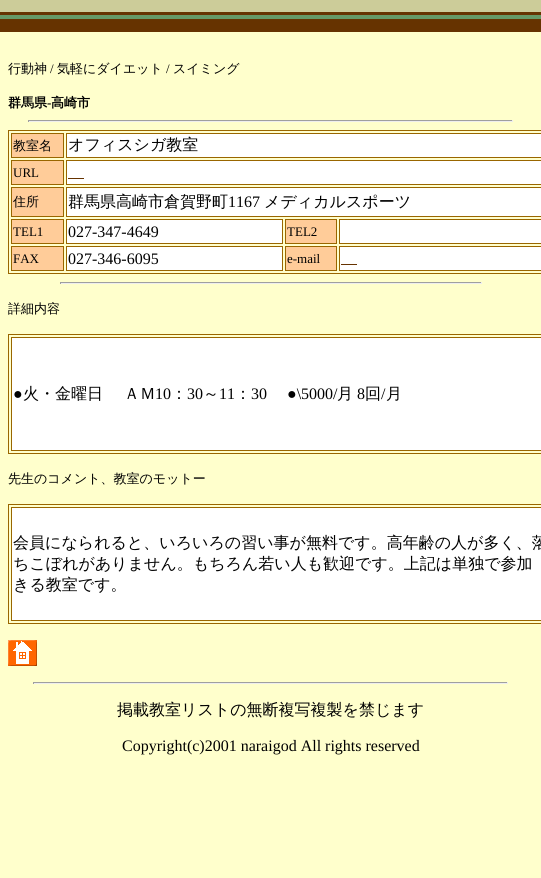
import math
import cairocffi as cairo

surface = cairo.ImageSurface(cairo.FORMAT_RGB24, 541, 878)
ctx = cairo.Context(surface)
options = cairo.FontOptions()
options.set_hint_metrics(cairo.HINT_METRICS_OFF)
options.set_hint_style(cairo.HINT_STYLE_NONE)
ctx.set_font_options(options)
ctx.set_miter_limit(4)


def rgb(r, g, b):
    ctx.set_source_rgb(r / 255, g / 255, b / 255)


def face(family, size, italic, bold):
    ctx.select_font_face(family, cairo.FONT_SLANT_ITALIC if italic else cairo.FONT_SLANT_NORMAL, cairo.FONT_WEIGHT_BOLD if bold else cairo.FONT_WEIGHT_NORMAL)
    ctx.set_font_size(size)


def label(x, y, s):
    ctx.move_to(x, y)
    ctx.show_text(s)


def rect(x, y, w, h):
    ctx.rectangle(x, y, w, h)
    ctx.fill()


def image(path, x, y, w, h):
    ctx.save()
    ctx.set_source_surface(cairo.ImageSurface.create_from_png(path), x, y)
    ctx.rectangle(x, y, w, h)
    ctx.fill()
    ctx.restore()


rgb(255, 255, 204)
ctx.paint()
image('image0.png', 0, 0, 541, 32)
face('WenQuanYi Zen Hei Medium', 13, 0, 0)
rgb(0, 0, 0)
label(8, 73, '行動神')
face('Liberation Serif', 13, 0, 0)
label(50, 73, '/')
face('WenQuanYi Zen Hei Medium', 13, 0, 0)
label(57, 73, '気軽にダイエット')
face('Liberation Serif', 13, 0, 0)
label(166, 73, '/')
face('WenQuanYi Zen Hei Medium', 13, 0, 0)
label(173, 73, 'スイミング')
face('WenQuanYi Zen Hei', 13, 0, 1)
label(8, 107, '群馬県')
face('Liberation Serif', 13, 0, 1)
label(47, 107, '-')
face('WenQuanYi Zen Hei', 13, 0, 1)
label(51, 107, '高崎市')
rgb(159, 159, 159)
rect(28, 120, 485, 1)
rgb(238, 238, 238)
rect(512, 120, 1, 2)
rect(28, 121, 485, 1)
rgb(159, 159, 159)
rect(28, 120, 1, 2)
ctx.rectangle(8.5, 130.5, 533, 143)
rgb(153, 102, 0)
ctx.set_line_width(1)
ctx.stroke()
rgb(255, 204, 153)
ctx.rectangle(11.5, 133.5, 52, 24)
ctx.fill_preserve()
rgb(153, 102, 0)
ctx.stroke()
face('WenQuanYi Zen Hei Medium', 13, 0, 0)
rgb(0, 0, 0)
label(13, 150, '教室名')
rgb(255, 255, 255)
ctx.rectangle(66.5, 133.5, 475, 24)
ctx.fill_preserve()
rgb(153, 102, 0)
ctx.stroke()
face('WenQuanYi Zen Hei Medium', 16, 0, 0)
rgb(0, 0, 0)
label(68, 150, 'オフィスシガ教室')
rgb(255, 204, 153)
ctx.rectangle(11.5, 160.5, 52, 24)
ctx.fill_preserve()
rgb(153, 102, 0)
ctx.stroke()
face('Liberation Serif', 13, 0, 0)
rgb(0, 0, 0)
label(13, 177, 'URL')
rgb(255, 255, 255)
ctx.rectangle(66.5, 160.5, 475, 24)
ctx.fill_preserve()
rgb(153, 102, 0)
ctx.stroke()
rgb(102, 51, 0)
rect(68, 178, 16, 1)
rgb(255, 204, 153)
ctx.rectangle(11.5, 187.5, 52, 29)
ctx.fill_preserve()
rgb(153, 102, 0)
ctx.stroke()
face('WenQuanYi Zen Hei Medium', 13, 0, 0)
rgb(0, 0, 0)
label(13, 206, '住所')
rgb(255, 255, 255)
ctx.rectangle(66.5, 187.5, 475, 29)
ctx.fill_preserve()
rgb(153, 102, 0)
ctx.stroke()
face('WenQuanYi Zen Hei Medium', 16, 0, 0)
rgb(0, 0, 0)
label(68, 207, '群馬県高崎市倉賀野町')
face('Liberation Serif', 16, 0, 0)
label(228, 207, '1167')
face('WenQuanYi Zen Hei Medium', 16, 0, 0)
label(264, 207, 'メディカルスポーツ')
rgb(255, 204, 153)
ctx.rectangle(11.5, 219.5, 52, 24)
ctx.fill_preserve()
rgb(153, 102, 0)
ctx.stroke()
face('Liberation Serif', 13, 0, 0)
rgb(0, 0, 0)
label(13, 236, 'TEL1')
rgb(255, 255, 255)
ctx.rectangle(66.5, 219.5, 216, 24)
ctx.fill_preserve()
rgb(153, 102, 0)
ctx.stroke()
face('Liberation Serif', 16, 0, 0)
rgb(0, 0, 0)
label(68, 237, '027-347-4649')
rgb(255, 204, 153)
ctx.rectangle(285.5, 219.5, 51, 24)
ctx.fill_preserve()
rgb(153, 102, 0)
ctx.stroke()
face('Liberation Serif', 13, 0, 0)
rgb(0, 0, 0)
label(287, 236, 'TEL2')
rgb(255, 255, 255)
ctx.rectangle(339.5, 219.5, 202, 24)
ctx.fill_preserve()
rgb(153, 102, 0)
ctx.stroke()
rgb(255, 204, 153)
ctx.rectangle(11.5, 246.5, 52, 24)
ctx.fill_preserve()
rgb(153, 102, 0)
ctx.stroke()
rgb(0, 0, 0)
label(13, 263, 'FAX')
rgb(255, 255, 255)
ctx.rectangle(66.5, 246.5, 216, 24)
ctx.fill_preserve()
rgb(153, 102, 0)
ctx.stroke()
face('Liberation Serif', 16, 0, 0)
rgb(0, 0, 0)
label(68, 264, '027-346-6095')
rgb(255, 204, 153)
ctx.rectangle(285.5, 246.5, 51, 24)
ctx.fill_preserve()
rgb(153, 102, 0)
ctx.stroke()
face('Liberation Serif', 13, 0, 0)
rgb(0, 0, 0)
label(287, 263, 'e-mail')
rgb(255, 255, 255)
ctx.rectangle(339.5, 246.5, 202, 24)
ctx.fill_preserve()
rgb(153, 102, 0)
ctx.stroke()
rgb(102, 51, 0)
rect(341, 264, 16, 1)
rgb(159, 159, 159)
rect(60, 282, 422, 1)
rgb(238, 238, 238)
rect(481, 282, 1, 2)
rect(60, 283, 422, 1)
rgb(159, 159, 159)
rect(60, 282, 1, 2)
face('WenQuanYi Zen Hei Medium', 13, 0, 0)
rgb(0, 0, 0)
label(8, 313, '詳細内容')
ctx.rectangle(8.5, 334.5, 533, 119)
rgb(153, 102, 0)
ctx.stroke()
rgb(255, 255, 255)
ctx.rectangle(11.5, 337.5, 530, 113)
ctx.fill_preserve()
rgb(153, 102, 0)
ctx.stroke()
face('Liberation Serif', 16, 0, 0)
rgb(0, 0, 0)
label(13, 399, '●')
face('WenQuanYi Zen Hei Medium', 16, 0, 0)
label(23, 399, '火・金曜日 　ＡＭ')
face('Liberation Serif', 16, 0, 0)
label(155, 399, '10')
face('WenQuanYi Zen Hei Medium', 16, 0, 0)
label(171, 399, '：')
face('Liberation Serif', 16, 0, 0)
label(187, 399, '30')
face('WenQuanYi Zen Hei Medium', 16, 0, 0)
label(203, 399, '～')
face('Liberation Serif', 16, 0, 0)
label(219, 399, '11')
face('WenQuanYi Zen Hei Medium', 16, 0, 0)
label(235, 399, '：')
face('Liberation Serif', 16, 0, 0)
label(251, 399, '30')
label(287, 399, '●\\5000/')
face('WenQuanYi Zen Hei Medium', 16, 0, 0)
label(337, 399, '月')
face('Liberation Serif', 16, 0, 0)
label(357, 399, '8')
face('WenQuanYi Zen Hei Medium', 16, 0, 0)
label(365, 399, '回')
face('Liberation Serif', 16, 0, 0)
label(381, 399, '/')
face('WenQuanYi Zen Hei Medium', 16, 0, 0)
label(386, 399, '月')
face('WenQuanYi Zen Hei Medium', 13, 0, 0)
label(8, 483, '先生のコメント、教室のモットー')
ctx.rectangle(8.5, 504.5, 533, 119)
rgb(153, 102, 0)
ctx.stroke()
rgb(255, 255, 255)
ctx.rectangle(11.5, 507.5, 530, 113)
ctx.fill_preserve()
rgb(153, 102, 0)
ctx.stroke()
face('WenQuanYi Zen Hei Medium', 16, 0, 0)
rgb(0, 0, 0)
label(13, 548, '会員になられると、いろいろの習い事が無料です。高年齢の人が多く、落')
label(13, 569, 'ちこぼれがありません。もちろん若い人も歓迎です。上記は単独で参加')
label(13, 590, 'きる教室です。')
image('image1.png', 8, 640, 29, 26)
rgb(159, 159, 159)
rect(33, 682, 475, 1)
rgb(238, 238, 238)
rect(507, 682, 1, 2)
rect(33, 683, 475, 1)
rgb(159, 159, 159)
rect(33, 682, 1, 2)
rgb(0, 0, 0)
label(117, 715, '掲載教室リストの無断複写複製を禁じます')
face('Liberation Serif', 16, 0, 0)
label(122, 751, 'Copyright(c)2001 naraigod All rights reserved')
surface.write_to_png('render.png')
